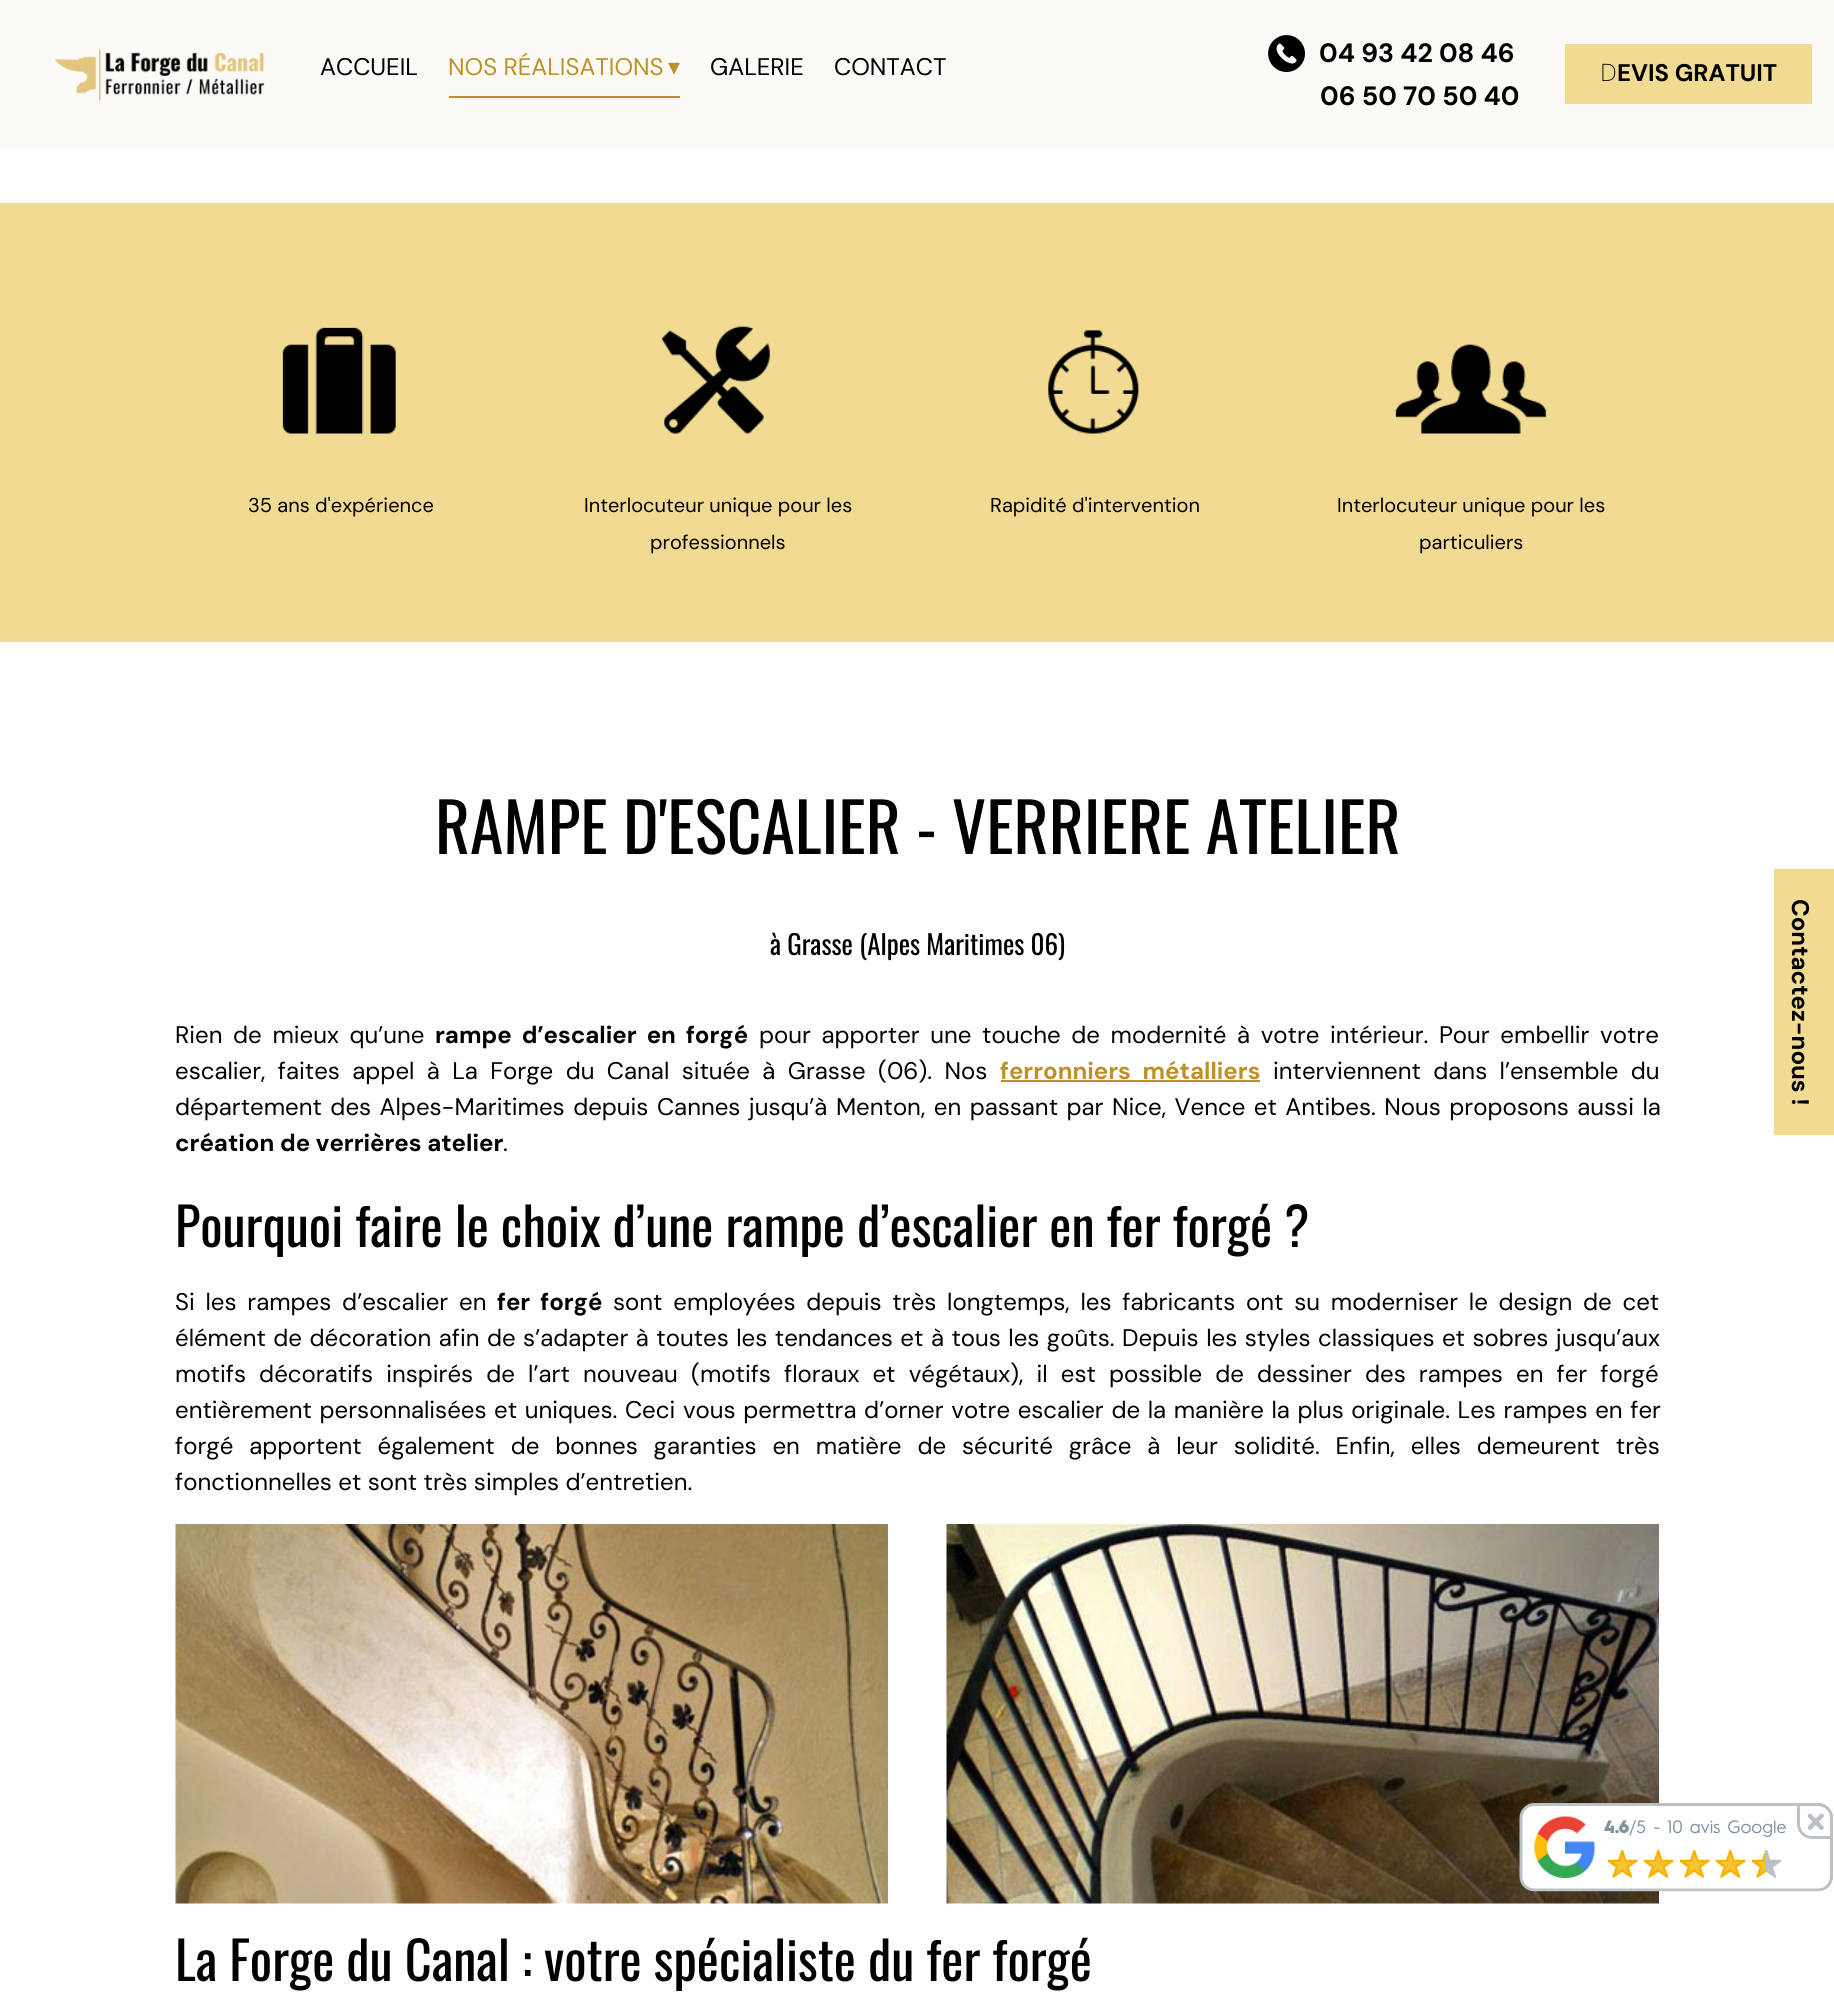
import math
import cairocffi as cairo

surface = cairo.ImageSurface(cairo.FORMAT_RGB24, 1834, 2003)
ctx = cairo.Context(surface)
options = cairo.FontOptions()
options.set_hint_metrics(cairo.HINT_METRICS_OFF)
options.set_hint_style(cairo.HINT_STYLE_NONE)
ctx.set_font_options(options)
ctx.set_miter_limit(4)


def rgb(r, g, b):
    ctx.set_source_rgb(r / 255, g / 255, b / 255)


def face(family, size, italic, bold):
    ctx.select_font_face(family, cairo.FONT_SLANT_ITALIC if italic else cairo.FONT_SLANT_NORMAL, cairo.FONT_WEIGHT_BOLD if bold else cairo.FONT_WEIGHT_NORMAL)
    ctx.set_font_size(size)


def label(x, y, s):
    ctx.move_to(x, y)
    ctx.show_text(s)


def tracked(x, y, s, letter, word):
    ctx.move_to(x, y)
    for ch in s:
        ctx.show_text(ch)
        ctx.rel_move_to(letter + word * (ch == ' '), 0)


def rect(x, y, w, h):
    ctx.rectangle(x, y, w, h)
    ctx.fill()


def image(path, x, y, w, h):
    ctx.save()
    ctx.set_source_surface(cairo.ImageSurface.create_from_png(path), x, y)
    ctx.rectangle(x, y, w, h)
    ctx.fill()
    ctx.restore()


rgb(255, 255, 255)
ctx.paint()
rgb(251, 250, 247)
rect(0, 0, 1834, 150)
face('DM Sans', 24, 0, 0)
rgb(0, 0, 0)
label(320, 75, 'ACCUEIL')
rgb(189, 145, 40)
label(448, 75, 'NOS RÉALISATIONS')
face('DejaVu Sans', 24, 0, 0)
label(668, 75, '▾')
rect(449, 96, 231, 2)
face('DM Sans', 24, 0, 0)
rgb(0, 0, 0)
label(710, 75, 'GALERIE')
label(834, 75, 'CONTACT')
image('image0.png', 55, 48, 210, 54)
image('image1.png', 1268, 35, 37, 37)
face('DM Sans', 26.5, 0, 1)
label(1319, 62, '04 93 42 08 46')
label(1320, 105, '06 50 70 50 40')
rgb(241, 218, 146)
rect(1565, 44, 247, 60)
face('Noto Sans ExtraLight', 24, 0, 0)
rgb(0, 0, 0)
label(1600, 81, 'D')
face('DM Sans', 24, 0, 1)
label(1617, 81, 'EVIS GRATUIT')
rgb(241, 218, 146)
rect(0, 203, 1834, 439)
image('image2.png', 282, 327, 114, 107)
face('DM Sans', 20, 0, 0)
rgb(0, 0, 0)
label(248, 512, '35 ans d\'expérience')
image('image3.png', 661, 326, 109, 108)
label(584, 512, 'Interlocuteur unique pour les')
label(650, 549, 'professionnels')
image('image4.png', 1048, 330, 91, 104)
label(990, 512, 'Rapidité d\'intervention')
image('image5.png', 1395, 344, 152, 90)
label(1337, 512, 'Interlocuteur unique pour les')
label(1419, 549, 'particuliers')
face('Oswald', 67.5, 0, 0)
label(435, 854, 'RAMPE D\'ESCALIER - VERRIERE ATELIER')
face('Oswald', 27, 0, 0)
label(770, 955, 'à Grasse (Alpes Maritimes 06)')
face('DM Sans', 24, 0, 0)
tracked(175, 1043, 'Rien de mieux qu’une', 0, 4.25)
face('DM Sans', 24, 0, 1)
tracked(435, 1043, 'rampe d’escalier en forgé', 0, 4.4)
face('DM Sans', 24, 0, 0)
tracked(759, 1043, 'pour apporter une touche de modernité à votre intérieur. Pour embellir votre', 0, 4.25)
tracked(175, 1079, 'escalier, faites appel à La Forge du Canal située à Grasse (06). Nos', 0, 6)
face('DM Sans', 24, 0, 1)
rgb(189, 145, 40)
tracked(1000, 1079, 'ferronniers métalliers', 0, 6)
rect(1001, 1080, 259, 2)
face('DM Sans', 24, 0, 0)
rgb(0, 0, 0)
tracked(1273, 1079, 'interviennent dans l’ensemble du', 0, 6)
tracked(175, 1115, 'département des Alpes-Maritimes depuis Cannes jusqu’à Menton, en passant par Nice, Vence et Antibes. Nous proposons aussi la', 0, 2.1)
face('DM Sans', 24, 0, 1)
label(175, 1151, 'création de verrières atelier')
face('DM Sans', 24, 0, 0)
label(503, 1151, '.')
rgb(241, 218, 146)
rect(1774, 869, 60, 266)
face('DM Sans', 24, 0, 1)
rgb(0, 0, 0)
ctx.save()
ctx.translate(1792, 899)
ctx.rotate(90 * math.pi / 180)
label(0, 0, 'Contactez-nous !')
ctx.restore()
face('Oswald', 52.5, 0, 0)
label(175, 1247, 'Pourquoi faire le choix d’une rampe d’escalier en fer forgé ?')
face('DM Sans', 24, 0, 0)
tracked(175, 1310, 'Si les rampes d’escalier en', 0, 4.4)
face('DM Sans', 24, 0, 1)
tracked(497, 1310, 'fer forgé', 0, 4.4)
face('DM Sans', 24, 0, 0)
tracked(613, 1310, 'sont employées depuis très longtemps, les fabricants ont su moderniser le design de cet', 0, 4.4)
tracked(175, 1346, 'élément de décoration afin de s’adapter à toutes les tendances et à tous les goûts. Depuis les styles classiques et sobres jusqu’aux', 0, 1.1)
tracked(175, 1382, 'motifs décoratifs inspirés de l’art nouveau (motifs floraux et végétaux), il est possible de dessiner des rampes en fer forgé', 0, 6.75)
tracked(175, 1418, 'entièrement personnalisées et uniques. Ceci vous permettra d’orner votre escalier de la manière la plus originale. Les rampes en fer', 0, 1.25)
tracked(175, 1454, 'forgé apportent également de bonnes garanties en matière de sécurité grâce à leur solidité. Enfin, elles demeurent très', 0, 9.5)
label(175, 1490, 'fonctionnelles et sont très simples d’entretien.')
image('image6.png', 175, 1524, 713, 380)
image('image7.png', 946, 1524, 713, 380)
face('Oswald', 52.5, 0, 0)
label(175, 1981, 'La Forge du Canal : votre spécialiste du fer forgé')
image('image8.png', 1519, 1803, 314, 89)
surface.write_to_png('render.png')
